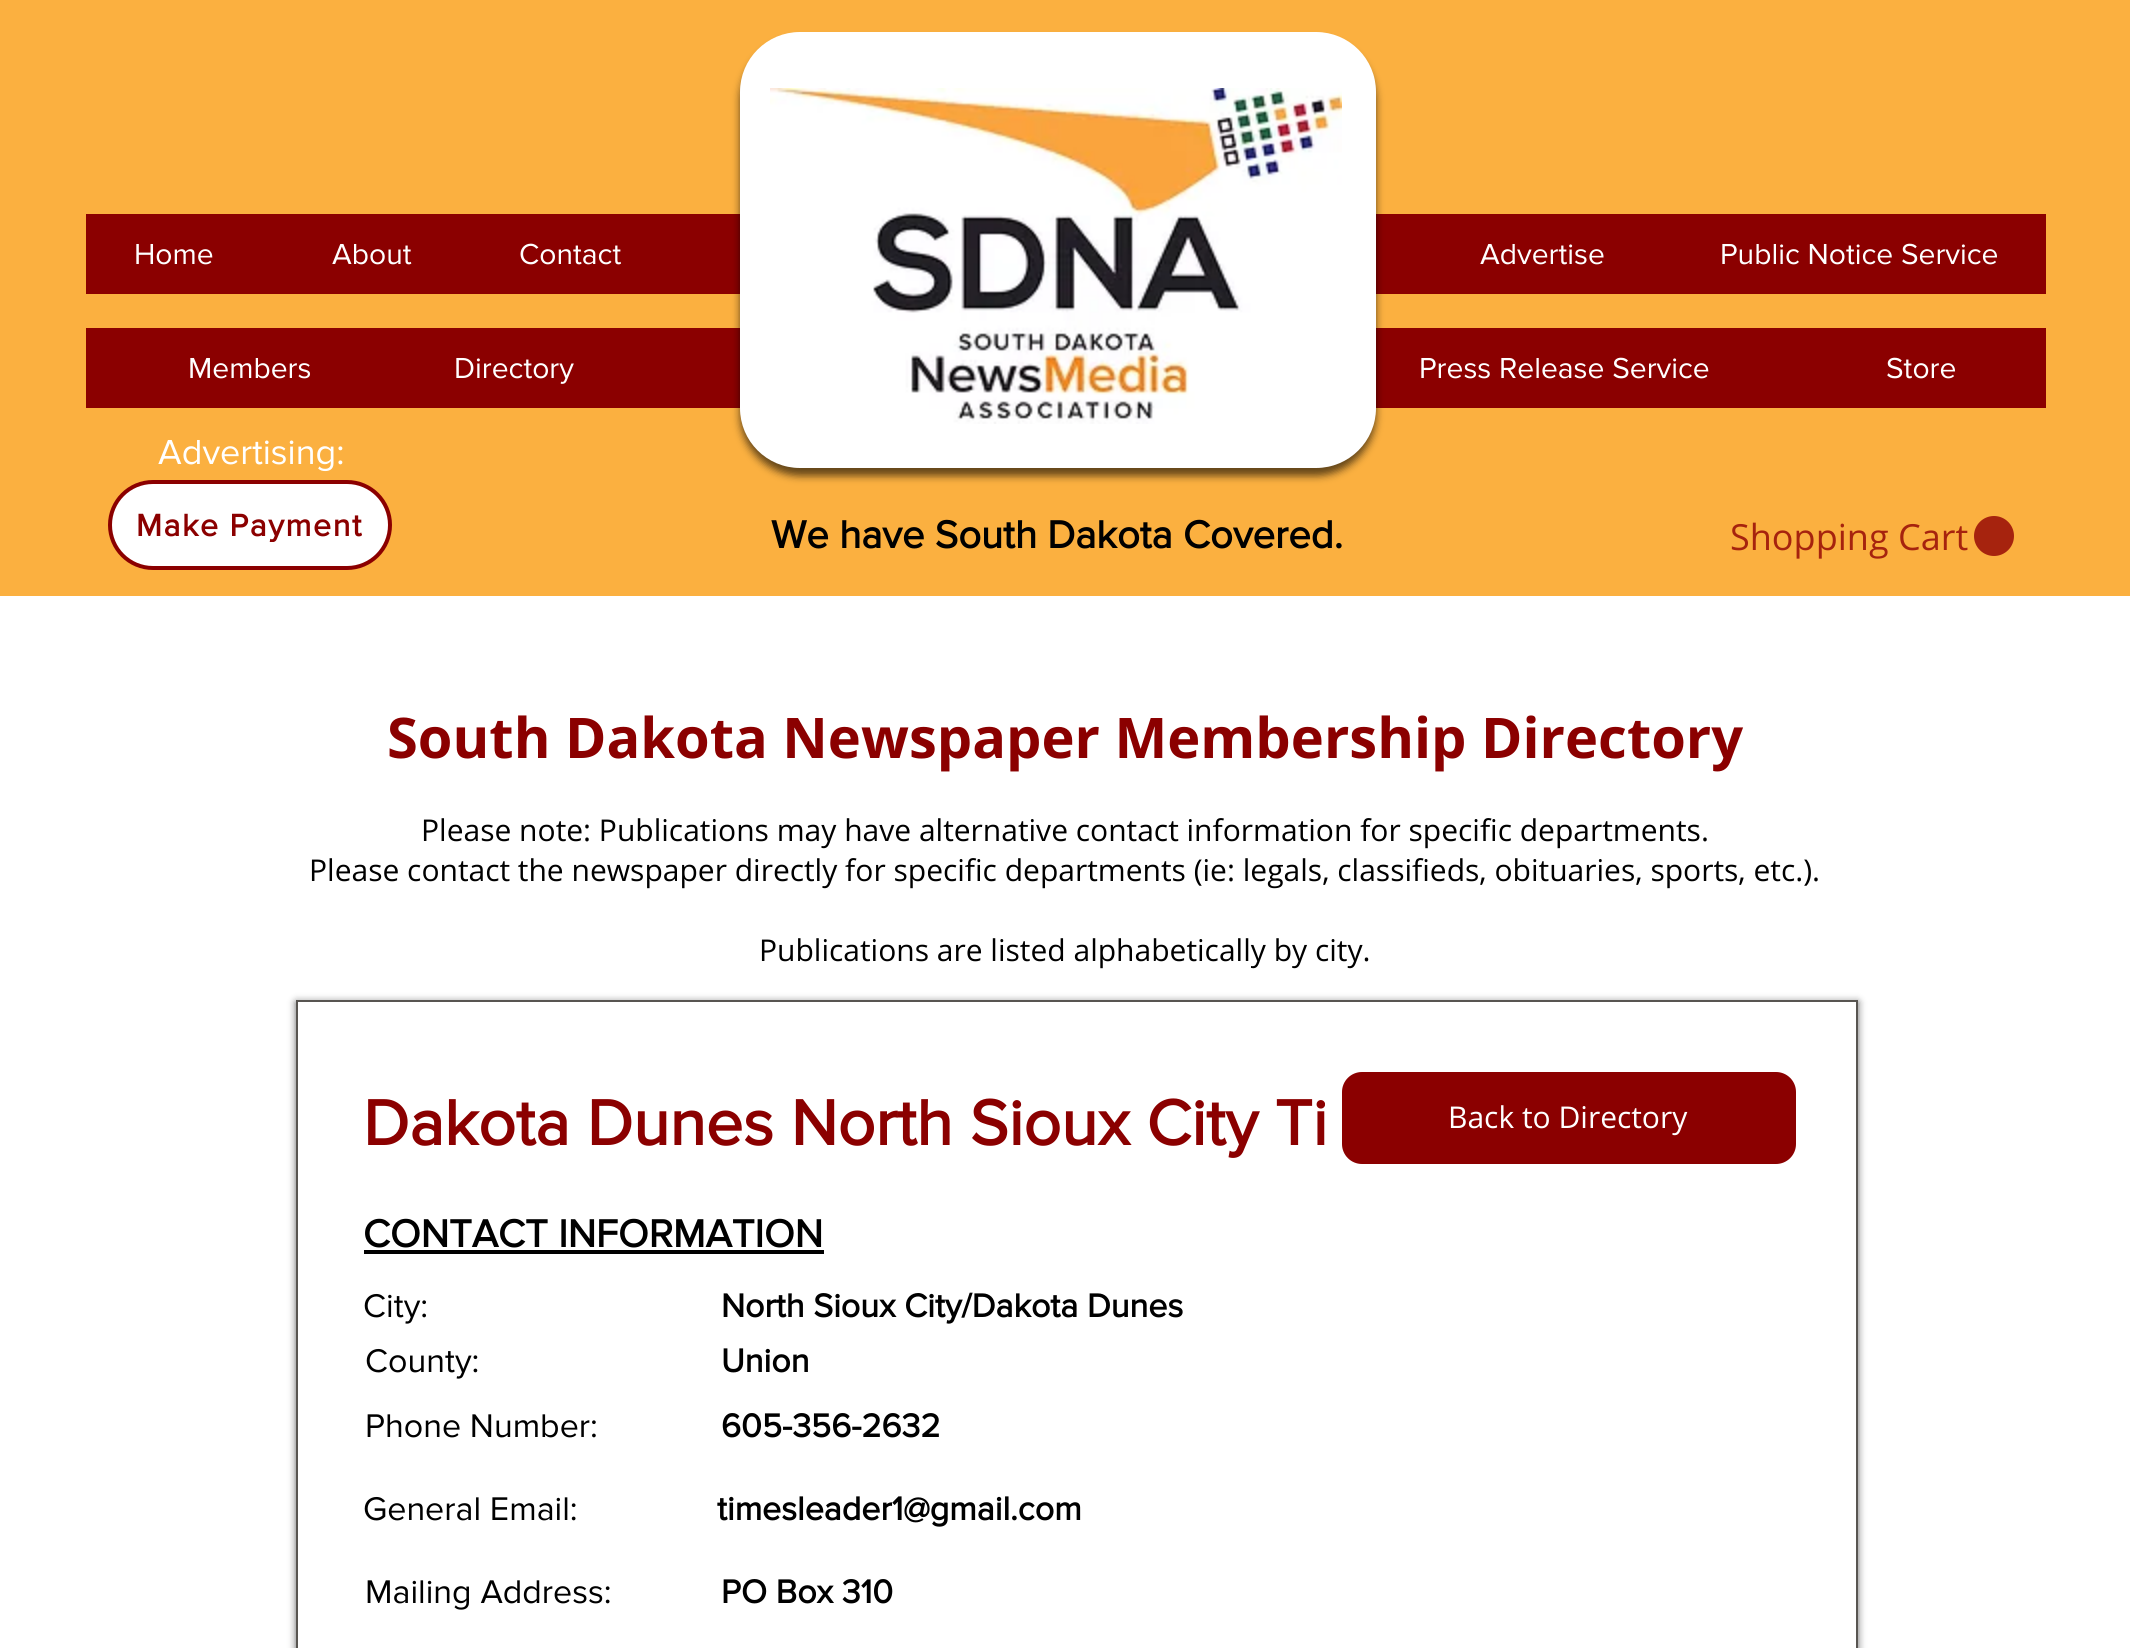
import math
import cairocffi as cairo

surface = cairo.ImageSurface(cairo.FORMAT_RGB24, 2130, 1648)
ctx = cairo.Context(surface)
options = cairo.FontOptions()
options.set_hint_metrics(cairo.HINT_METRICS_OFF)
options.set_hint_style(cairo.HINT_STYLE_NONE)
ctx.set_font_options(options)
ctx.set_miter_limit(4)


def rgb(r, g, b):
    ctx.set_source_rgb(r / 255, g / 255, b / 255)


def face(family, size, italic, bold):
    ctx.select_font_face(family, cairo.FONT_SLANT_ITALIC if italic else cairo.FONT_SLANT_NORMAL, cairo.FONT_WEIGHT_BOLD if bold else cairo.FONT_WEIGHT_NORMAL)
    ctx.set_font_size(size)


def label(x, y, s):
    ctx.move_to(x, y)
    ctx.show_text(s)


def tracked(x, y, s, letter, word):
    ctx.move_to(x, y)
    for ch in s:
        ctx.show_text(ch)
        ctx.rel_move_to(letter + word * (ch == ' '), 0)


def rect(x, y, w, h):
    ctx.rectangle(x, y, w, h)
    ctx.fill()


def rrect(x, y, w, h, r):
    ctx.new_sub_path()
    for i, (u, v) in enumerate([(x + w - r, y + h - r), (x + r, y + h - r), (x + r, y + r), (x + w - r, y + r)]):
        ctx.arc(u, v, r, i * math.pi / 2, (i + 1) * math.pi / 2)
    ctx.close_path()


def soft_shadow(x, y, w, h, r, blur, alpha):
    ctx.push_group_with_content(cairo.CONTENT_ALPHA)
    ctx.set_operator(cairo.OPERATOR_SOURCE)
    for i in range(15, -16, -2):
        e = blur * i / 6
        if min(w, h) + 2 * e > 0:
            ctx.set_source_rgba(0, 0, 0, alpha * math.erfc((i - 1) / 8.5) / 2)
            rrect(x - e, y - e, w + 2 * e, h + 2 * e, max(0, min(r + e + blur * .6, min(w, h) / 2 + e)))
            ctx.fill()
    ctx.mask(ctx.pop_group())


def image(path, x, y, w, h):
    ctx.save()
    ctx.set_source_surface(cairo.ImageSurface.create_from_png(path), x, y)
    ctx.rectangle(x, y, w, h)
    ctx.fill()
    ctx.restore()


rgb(255, 255, 255)
ctx.paint()
rgb(251, 176, 64)
rect(0, 0, 2130, 596)
rgb(139, 0, 0)
rect(86, 214, 1960, 80)
rect(86, 328, 1960, 80)
rgb(0, 0, 0)
soft_shadow(740, 40, 636, 436, 60, 4, 0.6)
rgb(255, 255, 255)
rrect(740, 32, 636, 436, 60)
ctx.fill()
image('image0.png', 770, 88, 572, 336)
face('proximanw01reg', 30, 0, 0)
label(134, 264, 'Home')
label(332, 264, 'About')
label(519, 264, 'Contact')
label(1480, 264, 'Advertise')
label(1720, 264, 'Public Notice Service')
label(188, 378, 'Members')
label(454, 378, 'Directory')
label(1419, 378, 'Press Release Service')
label(1886, 378, 'Store')
face('proximanw01reg', 36, 0, 0)
label(158, 464, 'Advertising:')
rrect(110, 482, 280, 86, 43)
ctx.fill_preserve()
rgb(139, 0, 0)
ctx.set_line_width(4)
ctx.stroke()
ctx.save()
ctx.rectangle(136, 508, 226, 34)
ctx.clip()
face('proximanw01reg', 32, 0, 1)
tracked(136, 536, 'Make Payment', 1.6, 0)
ctx.restore()
face('proximanw01reg', 40, 0, 1)
rgb(0, 0, 0)
label(771, 548, 'We have South Dakota Covered.')
rgb(166, 35, 14)
ctx.new_path()
ctx.arc(1994, 536, 20, 0, 2 * math.pi)
ctx.fill()
face('Open Sans', 36, 0, 0)
label(1730, 550, 'Shopping Cart')
face('Open Sans', 56, 0, 1)
rgb(139, 0, 0)
label(387, 758, 'South Dakota Newspaper Membership Directory')
face('Open Sans', 30, 0, 0)
rgb(0, 0, 0)
label(421, 841, 'Please note: Publications may have alternative contact information for specific departments.')
label(309, 881, 'Please contact the newspaper directly for specific departments (ie: legals, classifieds, obituaries, sports, etc.).')
label(759, 961, 'Publications are listed alphabetically by city.')
ctx.save()
ctx.set_fill_rule(cairo.FILL_RULE_EVEN_ODD)
ctx.new_path()
ctx.move_to(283, 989)
ctx.line_to(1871, 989)
ctx.line_to(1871, 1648)
ctx.line_to(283, 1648)
ctx.close_path()
ctx.move_to(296, 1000)
ctx.line_to(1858, 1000)
ctx.line_to(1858, 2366)
ctx.line_to(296, 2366)
ctx.close_path()
ctx.clip()
rgb(0, 0, 0)
soft_shadow(296, 1002, 1562, 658, 0, 4, 0.6)
ctx.restore()
ctx.rectangle(297, 1001, 1560, 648)
rgb(88, 85, 81)
ctx.set_line_width(2)
ctx.stroke()
face('proximanw01reg', 66, 0, 1)
rgb(139, 0, 0)
label(363, 1145, 'Dakota Dunes North Sioux City Ti')
rrect(1342, 1072, 454, 92, 20)
ctx.fill()
face('Open Sans', 30, 0, 0)
rgb(255, 255, 255)
label(1448, 1128, 'Back to Directory')
face('proximanw01reg', 40, 0, 1)
rgb(0, 0, 0)
label(363, 1247, 'CONTACT INFORMATION')
rect(364, 1250, 460, 4)
face('proximanw01reg', 34, 0, 0)
label(363, 1317, 'City:')
face('proximanw01reg', 34, 0, 1)
label(721, 1317, 'North Sioux City/Dakota Dunes')
face('proximanw01reg', 34, 0, 0)
label(365, 1372, 'County:')
face('proximanw01reg', 34, 0, 1)
label(721, 1372, 'Union')
face('proximanw01reg', 34, 0, 0)
label(365, 1437, 'Phone Number:')
face('proximanw01reg', 34, 0, 1)
label(721, 1437, '605-356-2632')
face('proximanw01reg', 34, 0, 0)
label(363, 1520, 'General Email:')
face('proximanw01reg', 34, 0, 1)
label(717, 1520, 'timesleader1@gmail.com')
face('proximanw01reg', 34, 0, 0)
label(365, 1603, 'Mailing Address:')
face('proximanw01reg', 34, 0, 1)
label(721, 1603, 'PO Box 310')
surface.write_to_png('render.png')
